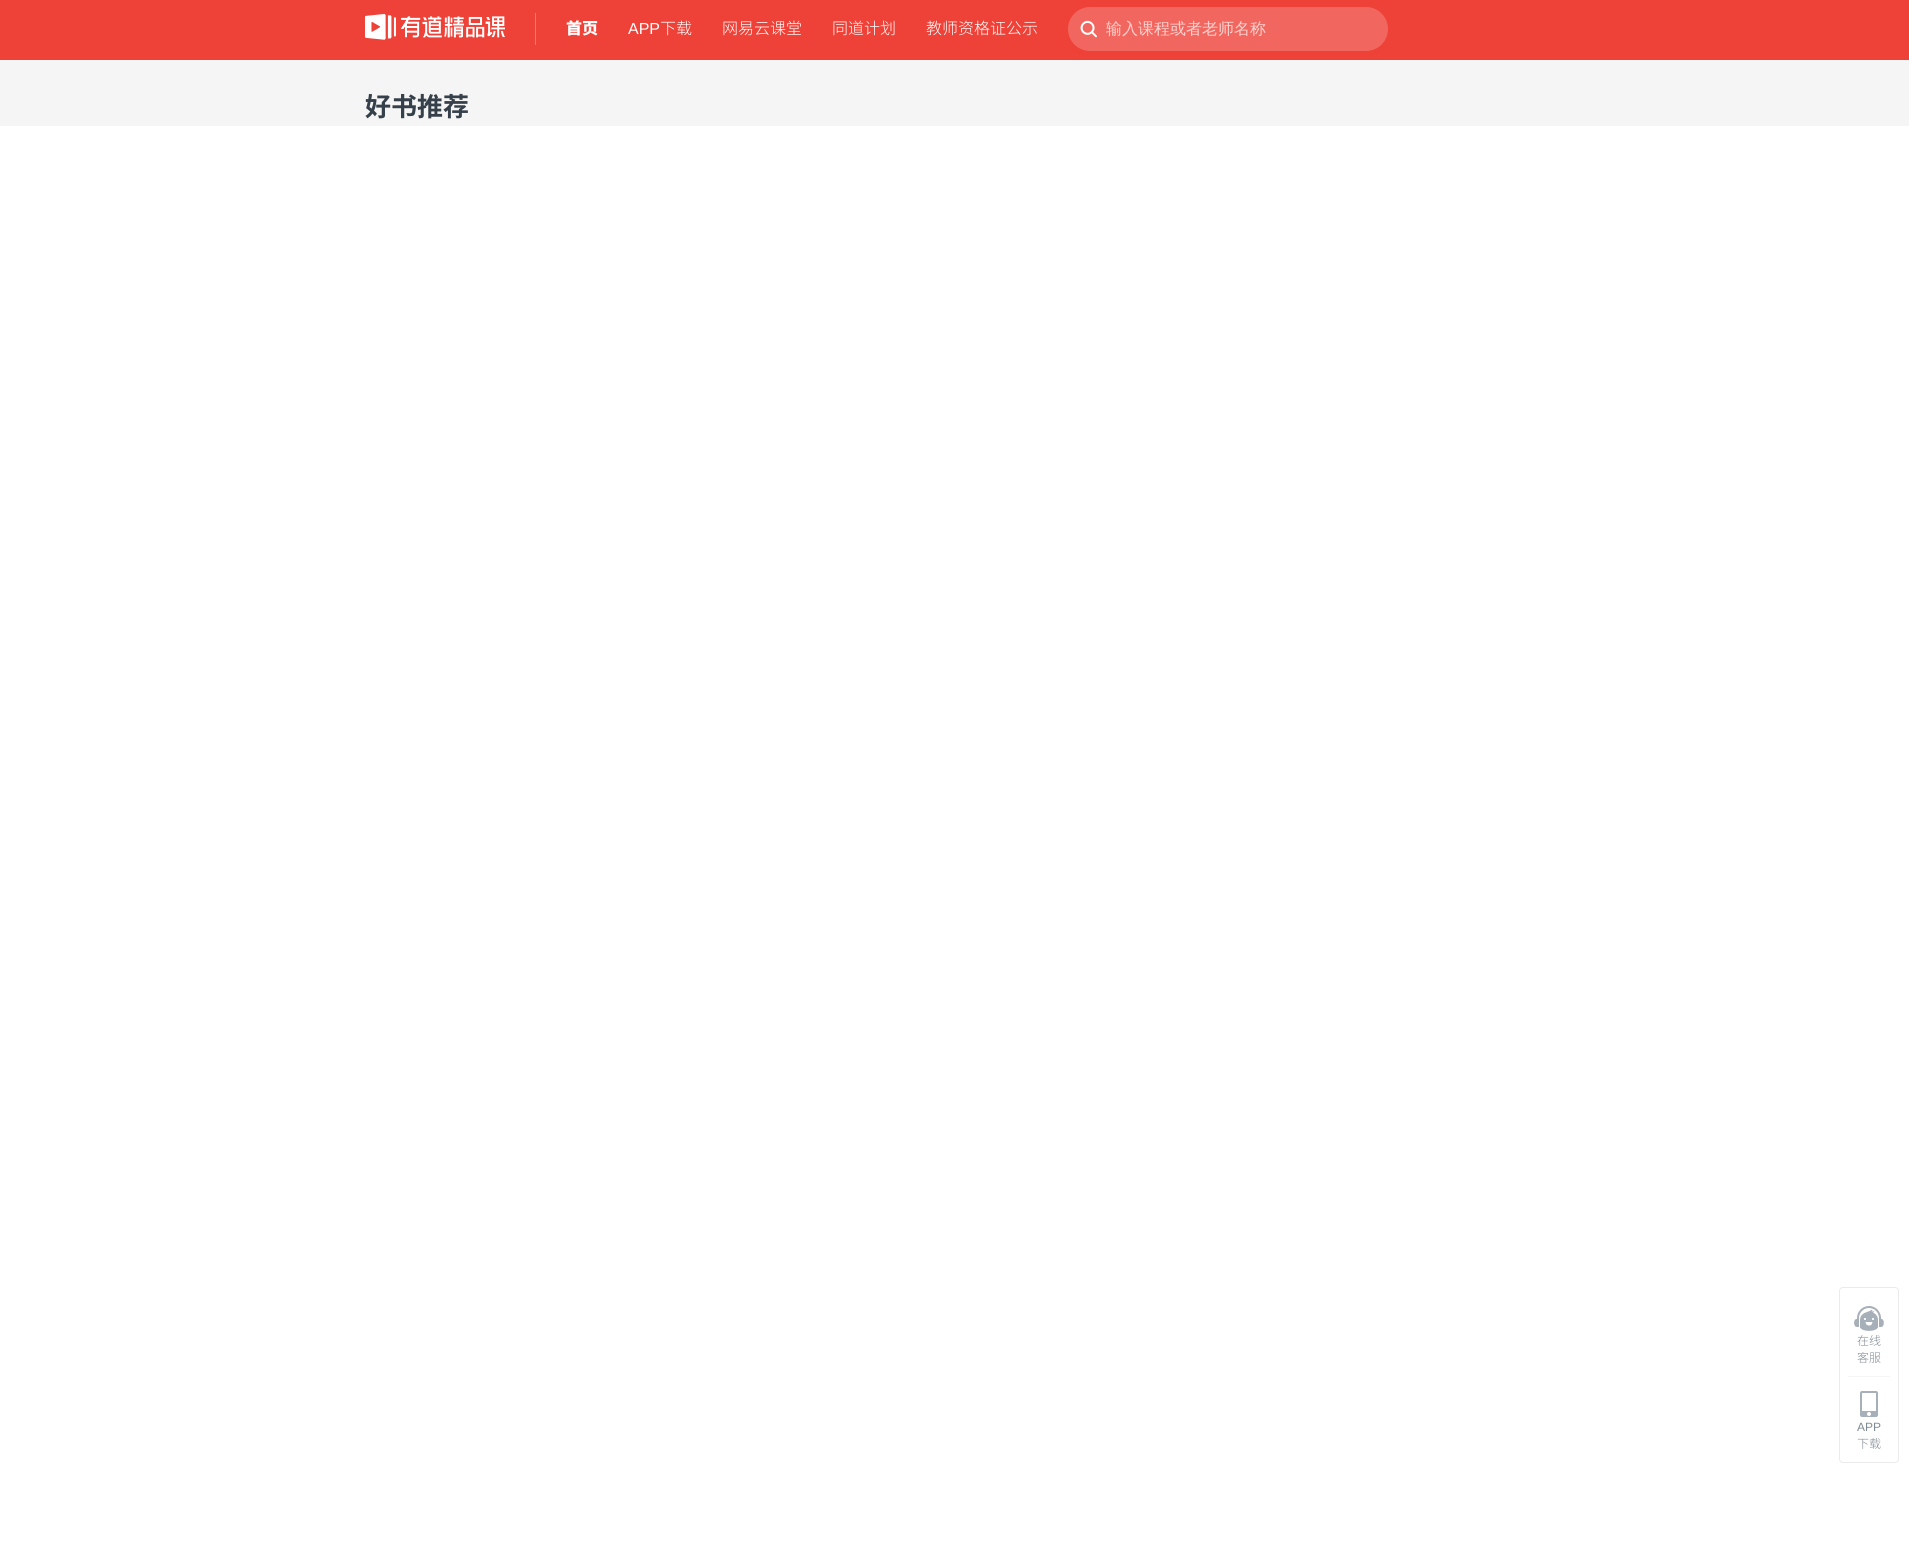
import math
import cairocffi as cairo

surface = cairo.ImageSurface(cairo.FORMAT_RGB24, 1909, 1563)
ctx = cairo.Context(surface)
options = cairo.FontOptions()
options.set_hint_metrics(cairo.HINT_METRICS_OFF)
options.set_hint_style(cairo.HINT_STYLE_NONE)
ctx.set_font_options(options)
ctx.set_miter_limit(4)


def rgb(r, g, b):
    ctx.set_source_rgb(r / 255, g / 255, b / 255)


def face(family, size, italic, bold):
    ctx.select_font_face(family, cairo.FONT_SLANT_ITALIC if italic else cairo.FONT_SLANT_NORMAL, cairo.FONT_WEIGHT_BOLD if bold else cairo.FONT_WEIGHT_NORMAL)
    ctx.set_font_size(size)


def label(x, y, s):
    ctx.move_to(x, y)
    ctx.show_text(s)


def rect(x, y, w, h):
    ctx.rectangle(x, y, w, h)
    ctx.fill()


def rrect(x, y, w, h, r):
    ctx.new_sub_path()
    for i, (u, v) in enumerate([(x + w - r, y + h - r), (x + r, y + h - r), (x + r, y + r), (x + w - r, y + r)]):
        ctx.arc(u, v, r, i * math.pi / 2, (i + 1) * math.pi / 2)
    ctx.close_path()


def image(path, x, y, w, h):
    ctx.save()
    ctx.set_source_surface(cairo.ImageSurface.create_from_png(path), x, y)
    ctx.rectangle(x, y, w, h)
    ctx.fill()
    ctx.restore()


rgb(255, 255, 255)
ctx.paint()
rgb(245, 245, 245)
rect(0, 60, 1909, 66)
rgb(238, 65, 55)
rect(0, 0, 1909, 60)
image('image0.png', 365, 14, 140, 26)
rgb(243, 122, 115)
rect(535, 13, 1, 32)
face('Noto Sans CJK SC Black', 16, 0, 0)
rgb(255, 255, 255)
label(566, 34, '首页')
face('Liberation Sans', 16, 0, 0)
label(628, 34, 'APP')
face('Noto Sans CJK SC Light', 16, 0, 0)
label(660, 34, '下载')
label(722, 34, '网易云课堂')
label(832, 34, '同道计划')
label(926, 34, '教师资格证公示')
rgb(241, 103, 95)
rrect(1068, 7, 320, 44, 22)
ctx.fill()
image('image1.png', 1080, 20, 17, 18)
ctx.save()
ctx.rectangle(1106, 19, 280, 21)
ctx.clip()
face('WenQuanYi Zen Hei Medium', 16, 0, 0)
rgb(251, 209, 207)
label(1106, 34, '输入课程或者老师名称')
ctx.restore()
face('Noto Sans CJK SC', 26, 0, 1)
rgb(54, 64, 74)
label(365, 116, '好书推荐')
rrect(1839.5, 1287.5, 59, 175, 3.5)
rgb(235, 235, 235)
ctx.set_line_width(1)
ctx.stroke()
image('image2.png', 1854, 1306, 30, 25)
face('Noto Sans CJK SC Light', 12, 0, 0)
rgb(129, 138, 146)
label(1857, 1345, '在线')
label(1857, 1362, '客服')
rgb(245, 245, 245)
rect(1848, 1376, 42, 1)
image('image3.png', 1860, 1391, 18, 26)
face('Liberation Sans', 12, 0, 0)
rgb(129, 138, 146)
label(1857, 1431, 'APP')
face('Noto Sans CJK SC Light', 12, 0, 0)
label(1857, 1448, '下载')
surface.write_to_png('render.png')
